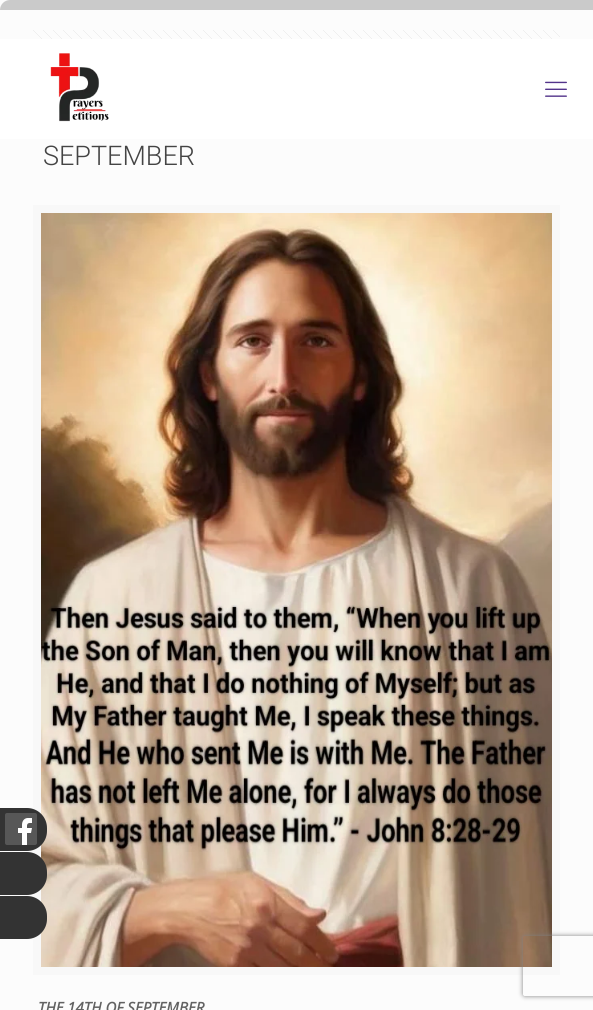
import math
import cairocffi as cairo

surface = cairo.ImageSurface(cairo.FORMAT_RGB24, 593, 1010)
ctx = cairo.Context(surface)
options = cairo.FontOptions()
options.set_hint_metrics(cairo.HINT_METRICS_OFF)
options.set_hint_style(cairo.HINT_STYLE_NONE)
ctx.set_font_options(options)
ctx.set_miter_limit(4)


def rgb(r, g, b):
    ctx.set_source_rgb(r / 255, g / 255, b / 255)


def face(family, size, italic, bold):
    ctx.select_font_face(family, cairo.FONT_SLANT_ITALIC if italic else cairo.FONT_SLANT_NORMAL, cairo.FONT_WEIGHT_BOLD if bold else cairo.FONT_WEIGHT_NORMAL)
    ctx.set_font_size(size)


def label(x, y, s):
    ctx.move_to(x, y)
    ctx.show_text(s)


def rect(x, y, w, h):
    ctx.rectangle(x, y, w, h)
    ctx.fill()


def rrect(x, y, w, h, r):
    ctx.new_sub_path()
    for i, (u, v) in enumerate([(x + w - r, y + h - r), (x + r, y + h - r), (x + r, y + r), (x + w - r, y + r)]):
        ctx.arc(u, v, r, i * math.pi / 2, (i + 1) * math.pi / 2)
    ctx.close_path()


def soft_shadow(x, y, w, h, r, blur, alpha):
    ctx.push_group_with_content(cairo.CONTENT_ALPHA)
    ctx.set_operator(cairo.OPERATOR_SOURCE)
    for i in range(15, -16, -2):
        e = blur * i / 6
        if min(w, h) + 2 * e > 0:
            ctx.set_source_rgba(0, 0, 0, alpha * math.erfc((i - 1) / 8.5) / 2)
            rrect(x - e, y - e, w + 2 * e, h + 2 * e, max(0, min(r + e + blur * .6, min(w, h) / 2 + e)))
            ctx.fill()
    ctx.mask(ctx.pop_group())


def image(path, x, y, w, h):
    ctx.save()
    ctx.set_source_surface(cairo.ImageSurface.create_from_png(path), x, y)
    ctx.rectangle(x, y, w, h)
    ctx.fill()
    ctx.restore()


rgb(252, 252, 252)
ctx.paint()
rgb(202, 202, 202)
ctx.new_path()
ctx.move_to(10, 0)
ctx.line_to(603, 0)
ctx.curve_to(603, 5.5, 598.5, 10, 593, 10)
ctx.line_to(0, 10)
ctx.curve_to(0, 4.5, 4.5, 0, 10, 0)
ctx.close_path()
ctx.fill()
rgb(255, 255, 255)
rect(0, 39, 593, 100)
image('image0.png', 50, 53, 59, 69)
image('image1.png', 545, 81, 22, 16)
ctx.rectangle(37, 209, 519, 762)
rgb(248, 248, 248)
ctx.set_line_width(8)
ctx.stroke()
image('image4.png', 41, 213, 511, 754)
rgb(51, 51, 51)
rrect(-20, 808, 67, 43, 20)
ctx.fill()
image('image2.png', 5, 813, 32, 32)
rrect(-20, 852, 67, 43, 20)
ctx.fill()
rrect(-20, 896, 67, 43, 20)
ctx.fill()
image('image3.png', 33, 30, 527, 9)
face('Roboto Light', 27, 0, 0)
rgb(68, 68, 68)
label(43, 165, 'SEPTEMBER')
face('Open Sans', 15, 1, 1)
rgb(98, 98, 98)
label(38, 1013, 'THE 14TH OF SEPTEMBER')
ctx.save()
ctx.set_fill_rule(cairo.FILL_RULE_EVEN_ODD)
ctx.new_path()
ctx.move_to(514, 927)
ctx.line_to(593, 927)
ctx.line_to(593, 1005)
ctx.line_to(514, 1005)
ctx.close_path()
ctx.move_to(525, 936)
ctx.line_to(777, 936)
ctx.curve_to(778, 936, 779, 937, 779, 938)
ctx.line_to(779, 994)
ctx.curve_to(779, 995, 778, 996, 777, 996)
ctx.line_to(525, 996)
ctx.curve_to(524, 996, 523, 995, 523, 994)
ctx.line_to(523, 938)
ctx.curve_to(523, 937, 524, 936, 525, 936)
ctx.close_path()
ctx.clip()
rgb(128, 128, 128)
soft_shadow(523, 936, 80, 60, 2, 2.5, 1)
ctx.restore()
surface.write_to_png('render.png')
